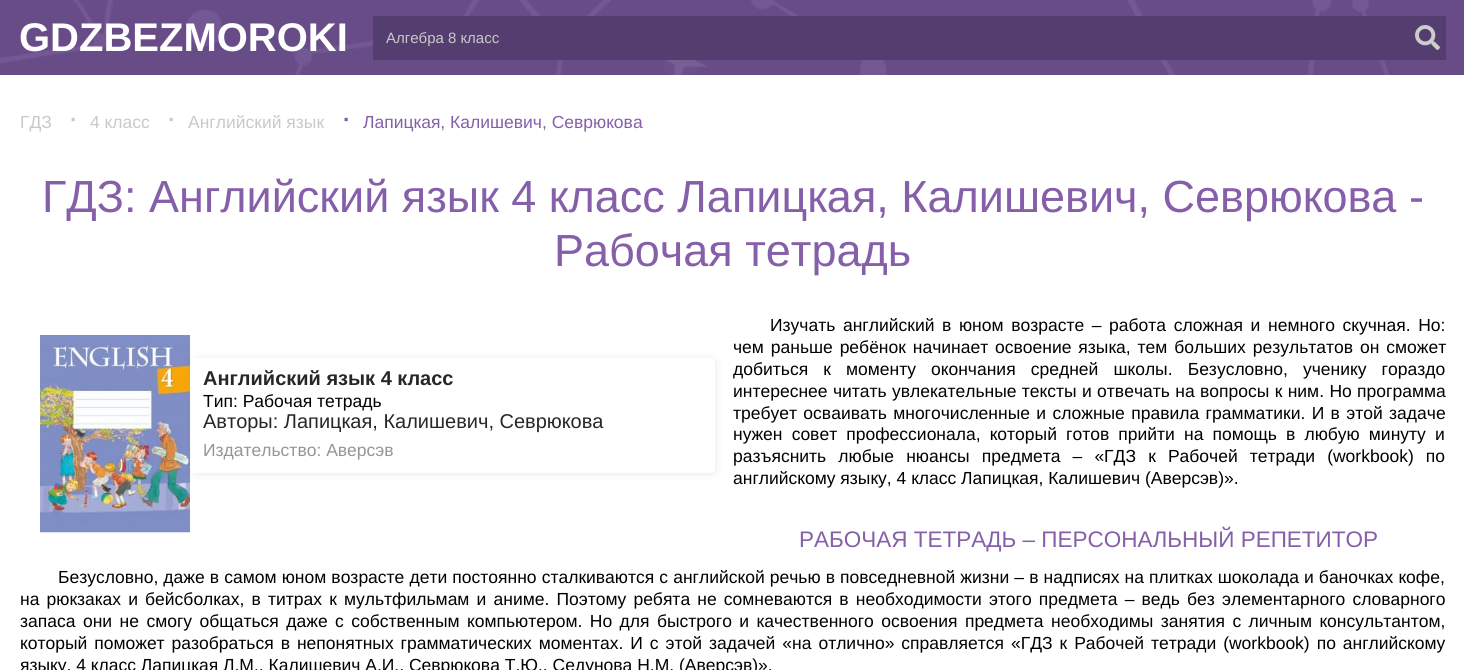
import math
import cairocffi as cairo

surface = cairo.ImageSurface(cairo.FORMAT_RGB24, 1464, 670)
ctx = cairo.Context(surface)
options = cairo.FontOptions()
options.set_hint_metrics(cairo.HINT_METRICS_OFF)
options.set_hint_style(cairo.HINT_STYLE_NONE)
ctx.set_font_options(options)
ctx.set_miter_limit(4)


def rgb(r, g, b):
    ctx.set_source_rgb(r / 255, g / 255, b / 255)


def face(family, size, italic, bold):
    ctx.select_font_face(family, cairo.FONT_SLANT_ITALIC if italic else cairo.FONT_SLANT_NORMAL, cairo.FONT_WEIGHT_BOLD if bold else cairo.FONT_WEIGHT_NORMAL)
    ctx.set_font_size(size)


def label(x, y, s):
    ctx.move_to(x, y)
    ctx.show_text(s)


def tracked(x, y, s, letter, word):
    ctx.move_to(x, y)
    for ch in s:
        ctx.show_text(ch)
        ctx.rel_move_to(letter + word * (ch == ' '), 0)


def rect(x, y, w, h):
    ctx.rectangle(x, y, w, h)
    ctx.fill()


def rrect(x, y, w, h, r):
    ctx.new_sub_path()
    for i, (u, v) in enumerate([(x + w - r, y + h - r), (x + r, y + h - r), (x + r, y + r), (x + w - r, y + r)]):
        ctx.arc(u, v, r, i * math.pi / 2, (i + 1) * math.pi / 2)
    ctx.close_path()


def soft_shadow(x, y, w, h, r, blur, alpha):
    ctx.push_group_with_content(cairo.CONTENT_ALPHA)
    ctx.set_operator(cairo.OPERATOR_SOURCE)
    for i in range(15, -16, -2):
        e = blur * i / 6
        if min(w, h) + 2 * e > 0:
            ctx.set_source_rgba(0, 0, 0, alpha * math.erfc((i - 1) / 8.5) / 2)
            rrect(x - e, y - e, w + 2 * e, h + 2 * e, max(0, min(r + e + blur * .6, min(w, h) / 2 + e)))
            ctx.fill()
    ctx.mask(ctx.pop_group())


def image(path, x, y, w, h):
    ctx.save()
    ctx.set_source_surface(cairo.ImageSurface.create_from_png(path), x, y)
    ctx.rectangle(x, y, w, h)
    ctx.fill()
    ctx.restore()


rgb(255, 255, 255)
ctx.paint()
image('image0.png', 0, 0, 1464, 75)
face('Liberation Sans', 40, 0, 1)
rgb(255, 255, 255)
label(19, 51, 'GDZBEZMOROKI')
rgb(84, 61, 111)
rect(373, 16, 1073, 44)
face('Liberation Sans', 15, 0, 0)
rgb(201, 201, 201)
label(386, 43, 'Алгебра 8 класс')
image('image1.png', 1415, 25, 25, 25)
face('Liberation Sans', 17.5, 0, 0)
label(20, 128, 'ГДЗ')
face('Liberation Sans', 22.5, 0, 1)
label(70, 127, '·')
face('Liberation Sans', 17.5, 0, 0)
label(90, 128, '4 класс')
face('Liberation Sans', 22.5, 0, 1)
label(168, 127, '·')
face('Liberation Sans', 17.5, 0, 0)
label(188, 128, 'Английский язык')
face('Liberation Sans', 22.5, 0, 1)
rgb(133, 95, 169)
label(343, 127, '·')
face('Liberation Sans', 17.5, 0, 0)
label(363, 128, 'Лапицкая, Калишевич, Севрюкова')
face('Liberation Sans', 45, 0, 0)
label(42, 212, 'ГДЗ: Английский язык 4 класс Лапицкая, Калишевич, Севрюкова -')
label(554, 266, 'Рабочая тетрадь')
image('image2.png', 40, 335, 150, 198)
ctx.save()
ctx.set_fill_rule(cairo.FILL_RULE_EVEN_ODD)
ctx.new_path()
ctx.move_to(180, 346)
ctx.line_to(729, 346)
ctx.line_to(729, 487)
ctx.line_to(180, 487)
ctx.close_path()
ctx.move_to(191, 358)
ctx.line_to(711, 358)
ctx.curve_to(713, 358, 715, 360, 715, 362)
ctx.line_to(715, 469)
ctx.curve_to(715, 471, 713, 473, 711, 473)
ctx.line_to(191, 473)
ctx.close_path()
ctx.clip()
rgb(34, 34, 34)
soft_shadow(193, 359, 523, 115, 4, 4, 0.1)
ctx.restore()
face('Liberation Sans', 20, 0, 1)
rgb(39, 39, 39)
label(203, 385, 'Английский язык 4 класс')
face('Liberation Sans', 17.5, 0, 0)
rgb(0, 0, 0)
label(203, 407, 'Тип: Рабочая тетрадь')
face('Liberation Sans', 20, 0, 0)
rgb(39, 39, 39)
label(203, 428, 'Авторы: Лапицкая, Калишевич, Севрюкова')
face('Liberation Sans', 17.5, 0, 0)
rgb(149, 149, 149)
label(203, 456, 'Издательство: Аверсэв')
rgb(0, 0, 0)
tracked(770, 331, 'Изучать английский в юном возрасте – работа сложная и немного скучная. Но:', 0, 2.75)
tracked(733, 353, 'чем раньше ребёнок начинает освоение языка, тем больших результатов он сможет', 0, 2)
tracked(733, 375, 'добиться к моменту окончания средней школы. Безусловно, ученику гораздо', 0, 10.25)
tracked(733, 397, 'интереснее читать увлекательные тексты и отвечать на вопросы к ним. Но программа', 0, 0.5)
tracked(733, 419, 'требует осваивать многочисленные и сложные правила грамматики. И в этой задаче', 0, 1.5)
tracked(733, 440, 'нужен совет профессионала, который готов прийти на помощь в любую минуту и', 0, 4.25)
tracked(733, 462, 'разъяснить любые нюансы предмета – «ГДЗ к Рабочей тетради (workbook) по', 0, 7.25)
label(733, 484, 'английскому языку, 4 класс Лапицкая, Калишевич (Аверсэв)».')
face('Liberation Sans', 22.5, 0, 0)
rgb(133, 95, 169)
label(799, 547, 'РАБОЧАЯ ТЕТРАДЬ – ПЕРСОНАЛЬНЫЙ РЕПЕТИТОР')
face('Liberation Sans', 17.5, 0, 0)
rgb(0, 0, 0)
tracked(58, 583, 'Безусловно, даже в самом юном возрасте дети постоянно сталкиваются с английской речью в повседневной жизни – в надписях на плитках шоколада и баночках кофе,', 0, 0.25)
tracked(20, 605, 'на рюкзаках и бейсболках, в титрах к мультфильмам и аниме. Поэтому ребята не сомневаются в необходимости этого предмета – ведь без элементарного словарного', 0, 2.3)
tracked(20, 627, 'запаса они не смогу общаться даже с собственным компьютером. Но для быстрого и качественного освоения предмета необходимы занятия с личным консультантом,', 0, 2.6)
tracked(20, 649, 'который поможет разобраться в непонятных грамматических моментах. И с этой задачей «на отлично» справляется «ГДЗ к Рабочей тетради (workbook) по английскому', 0, 2.1)
label(20, 671, 'языку, 4 класс Лапицкая Л.М., Калишевич А.И., Севрюкова Т.Ю., Седунова Н.М. (Аверсэв)».')
surface.write_to_png('render.png')
